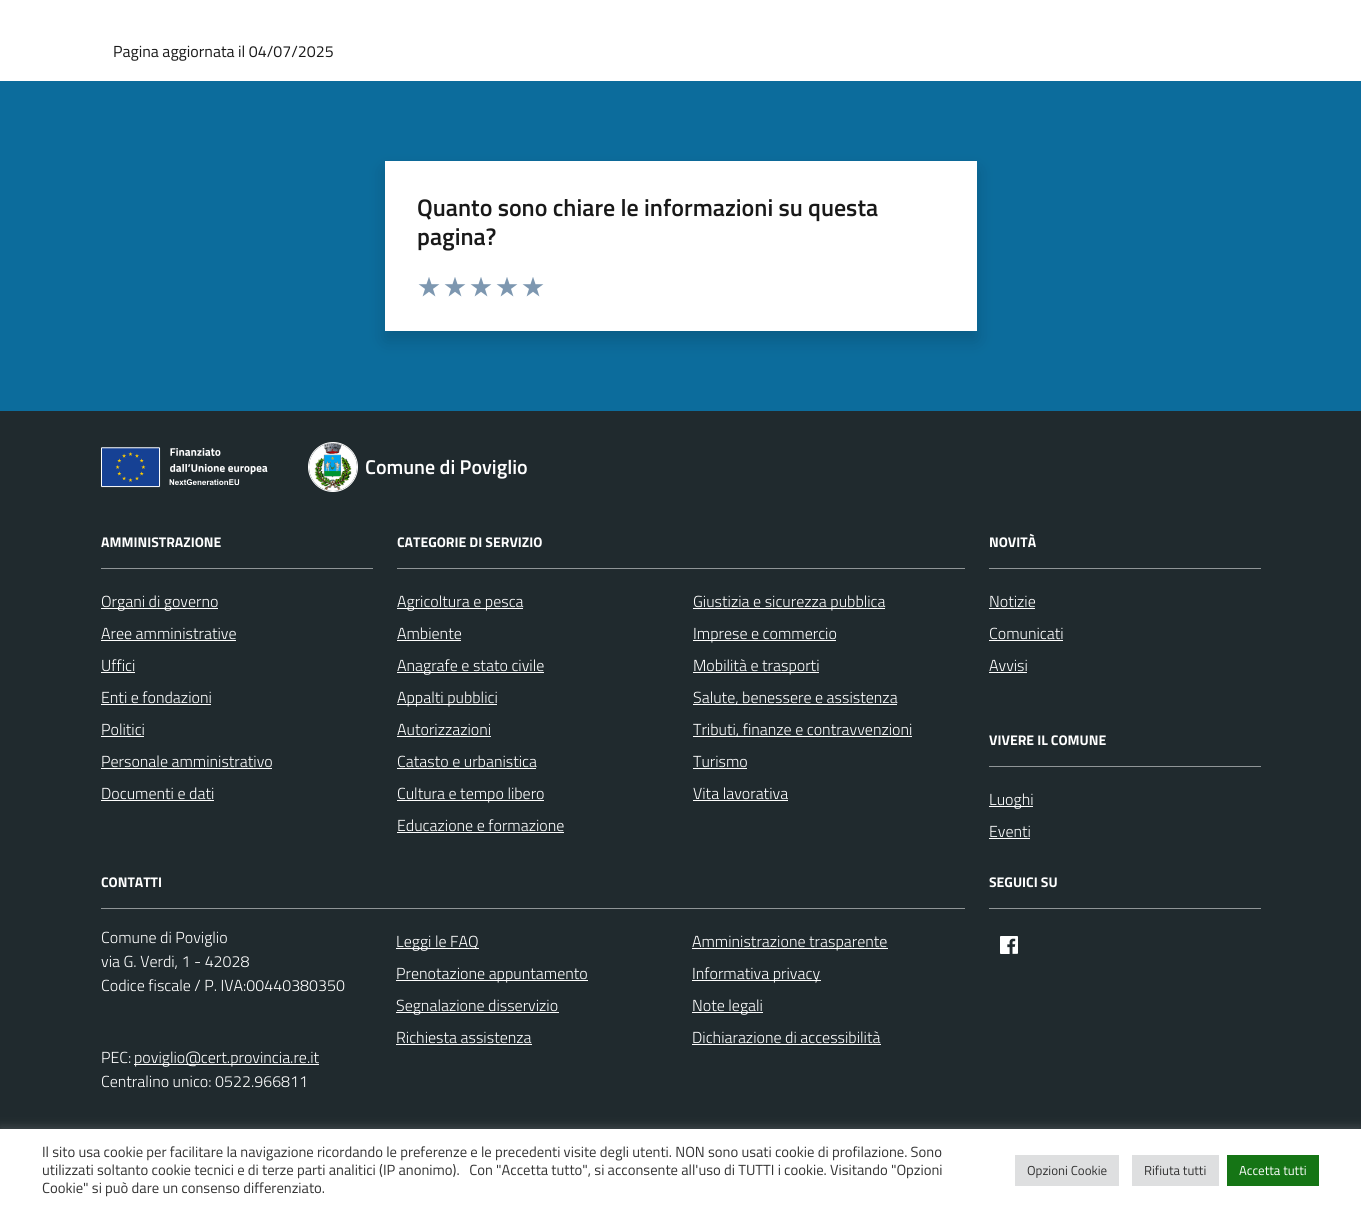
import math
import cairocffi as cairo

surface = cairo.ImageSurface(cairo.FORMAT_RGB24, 1361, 1211)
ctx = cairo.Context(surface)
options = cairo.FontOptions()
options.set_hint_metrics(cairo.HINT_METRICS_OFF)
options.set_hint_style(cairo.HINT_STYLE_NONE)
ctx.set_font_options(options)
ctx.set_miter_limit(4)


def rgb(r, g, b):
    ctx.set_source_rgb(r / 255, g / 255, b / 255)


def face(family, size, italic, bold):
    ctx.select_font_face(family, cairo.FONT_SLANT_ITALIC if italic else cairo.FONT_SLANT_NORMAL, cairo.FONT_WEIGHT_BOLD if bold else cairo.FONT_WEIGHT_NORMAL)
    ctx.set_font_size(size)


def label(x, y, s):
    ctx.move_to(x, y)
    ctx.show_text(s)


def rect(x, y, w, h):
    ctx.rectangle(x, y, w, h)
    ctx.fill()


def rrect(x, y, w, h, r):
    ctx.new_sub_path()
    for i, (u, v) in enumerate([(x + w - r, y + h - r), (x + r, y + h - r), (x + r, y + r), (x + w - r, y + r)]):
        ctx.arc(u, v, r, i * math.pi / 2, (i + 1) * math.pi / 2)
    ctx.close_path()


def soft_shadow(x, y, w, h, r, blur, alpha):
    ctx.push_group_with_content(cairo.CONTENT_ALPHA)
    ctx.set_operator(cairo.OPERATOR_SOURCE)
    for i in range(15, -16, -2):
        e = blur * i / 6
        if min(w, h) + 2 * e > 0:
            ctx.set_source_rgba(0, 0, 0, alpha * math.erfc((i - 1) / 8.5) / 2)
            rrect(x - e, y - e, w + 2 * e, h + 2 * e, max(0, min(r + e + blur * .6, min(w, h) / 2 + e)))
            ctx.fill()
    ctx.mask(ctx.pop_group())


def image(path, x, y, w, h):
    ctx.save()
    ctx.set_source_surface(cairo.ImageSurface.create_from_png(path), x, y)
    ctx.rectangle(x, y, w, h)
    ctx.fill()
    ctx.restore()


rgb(255, 255, 255)
ctx.paint()
face('Titillium Web', 16, 0, 0)
rgb(25, 25, 25)
label(113, 57, 'Pagina aggiornata il 04/07/2025')
rgb(12, 108, 156)
rect(0, 81, 1361, 330)
rgb(0, 0, 0)
soft_shadow(385, 170, 592, 170, 0, 9, 0.15)
rgb(255, 255, 255)
rect(385, 161, 592, 170)
face('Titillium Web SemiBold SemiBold', 24, 0, 0)
rgb(25, 25, 25)
label(417, 216, 'Quanto sono chiare le informazioni su questa')
label(417, 245, 'pagina?')
image('image0.png', 418, 277, 22, 20)
image('image0.png', 444, 277, 22, 20)
image('image0.png', 470, 277, 22, 20)
image('image0.png', 496, 277, 22, 20)
image('image0.png', 522, 277, 22, 20)
rgb(32, 42, 46)
rect(0, 411, 1361, 718)
image('image1.png', 101, 447, 167, 41)
rgb(255, 255, 255)
ctx.arc(333, 467, 24, 0, 2 * math.pi)
ctx.fill()
image('image2.png', 314, 443, 38, 47)
ctx.arc(333, 467, 24.5, 0, 2 * math.pi)
ctx.set_line_width(1)
ctx.stroke()
face('Titillium Web SemiBold SemiBold', 20, 0, 0)
label(365, 474, 'Comune di Poviglio')
rgb(144, 149, 151)
rect(101, 568, 272, 1)
face('Titillium Web', 14, 0, 1)
rgb(255, 255, 255)
label(101, 547, 'AMMINISTRAZIONE')
rect(101, 608, 117, 1)
face('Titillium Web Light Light', 16, 0, 0)
label(101, 607, 'Organi di governo')
label(101, 639, 'Aree amministrative')
rect(101, 640, 135, 1)
label(101, 671, 'Uffici')
rect(101, 672, 34, 1)
label(101, 703, 'Enti e fondazioni')
rect(101, 704, 110, 1)
label(101, 735, 'Politici')
rect(101, 736, 43, 1)
label(101, 767, 'Personale amministrativo')
rect(101, 768, 171, 1)
label(101, 799, 'Documenti e dati')
rect(101, 800, 113, 1)
rgb(144, 149, 151)
rect(397, 568, 568, 1)
face('Titillium Web', 14, 0, 1)
rgb(255, 255, 255)
label(397, 547, 'CATEGORIE DI SERVIZIO')
rect(397, 608, 126, 1)
face('Titillium Web Light Light', 16, 0, 0)
label(397, 607, 'Agricoltura e pesca')
label(397, 639, 'Ambiente')
rect(397, 640, 64, 1)
rect(397, 672, 147, 1)
label(397, 671, 'Anagrafe e stato civile')
rect(397, 704, 100, 1)
label(397, 703, 'Appalti pubblici')
label(397, 735, 'Autorizzazioni')
rect(397, 736, 94, 1)
label(397, 767, 'Catasto e urbanistica')
rect(397, 768, 139, 1)
rect(397, 800, 147, 1)
label(397, 799, 'Cultura e tempo libero')
label(397, 831, 'Educazione e formazione')
rect(397, 832, 167, 1)
rect(693, 608, 192, 1)
label(693, 607, 'Giustizia e sicurezza pubblica')
rect(693, 640, 143, 1)
label(693, 639, 'Imprese e commercio')
rect(693, 672, 126, 1)
label(693, 671, 'Mobilità e trasporti')
rect(693, 704, 204, 1)
label(693, 703, 'Salute, benessere e assistenza')
rect(693, 736, 219, 1)
label(693, 735, 'Tributi, finanze e contravvenzioni')
label(693, 767, 'Turismo')
rect(693, 768, 54, 1)
label(693, 799, 'Vita lavorativa')
rect(693, 800, 95, 1)
rgb(144, 149, 151)
rect(989, 568, 272, 1)
face('Titillium Web', 14, 0, 1)
rgb(255, 255, 255)
label(989, 547, 'NOVITÀ')
face('Titillium Web Light Light', 16, 0, 0)
label(989, 607, 'Notizie')
rect(989, 608, 46, 1)
label(989, 639, 'Comunicati')
rect(989, 640, 74, 1)
label(989, 671, 'Avvisi')
rect(989, 672, 38, 1)
rgb(144, 149, 151)
rect(989, 766, 272, 1)
face('Titillium Web', 14, 0, 1)
rgb(255, 255, 255)
label(989, 745, 'VIVERE IL COMUNE')
rect(989, 806, 44, 1)
face('Titillium Web Light Light', 16, 0, 0)
label(989, 805, 'Luoghi')
label(989, 837, 'Eventi')
rect(989, 838, 41, 1)
rgb(144, 149, 151)
rect(101, 908, 864, 1)
face('Titillium Web', 14, 0, 1)
rgb(255, 255, 255)
label(101, 887, 'CONTATTI')
face('Titillium Web Light Light', 16, 0, 0)
label(101, 943, 'Comune di Poviglio')
label(101, 967, 'via G. Verdi, 1 - 42028')
label(101, 991, 'Codice fiscale / P. IVA:00440380350')
label(101, 1063, 'PEC:')
rect(134, 1064, 185, 1)
label(134, 1063, 'poviglio@cert.provincia.re.it')
label(101, 1087, 'Centralino unico: 0522.966811')
rect(396, 948, 83, 1)
label(396, 947, 'Leggi le FAQ')
rect(396, 980, 192, 1)
label(396, 979, 'Prenotazione appuntamento')
rect(396, 1012, 163, 1)
label(396, 1011, 'Segnalazione disservizio')
label(396, 1043, 'Richiesta assistenza')
rect(396, 1044, 136, 1)
rect(692, 948, 196, 1)
label(692, 947, 'Amministrazione trasparente')
rect(692, 980, 129, 1)
label(692, 979, 'Informativa privacy')
rect(692, 1012, 71, 1)
label(692, 1011, 'Note legali')
label(692, 1043, 'Dichiarazione di accessibilità')
rect(692, 1044, 189, 1)
rgb(144, 149, 151)
rect(989, 908, 272, 1)
face('Titillium Web', 14, 0, 1)
rgb(255, 255, 255)
label(989, 887, 'SEGUICI SU')
image('image3.png', 1000, 936, 18, 18)
rgb(172, 171, 171)
soft_shadow(0, 1128, 1361, 82, 0, 5, 0.3)
rgb(255, 255, 255)
rect(0, 1129, 1361, 82)
face('Titillium Web', 14.67, 0, 0)
rgb(51, 51, 51)
label(42, 1157, 'Il sito usa cookie per facilitare la navigazione ricordando le preferenze e le precedenti visite degli utenti. NON sono usati cookie di profilazione. Sono')
label(42, 1175, 'utilizzati soltanto cookie tecnici e di terze parti analitici (IP anonimo).   Con "Accetta tutto", si acconsente all\'uso di TUTTI i cookie. Visitando "Opzioni')
label(42, 1193, 'Cookie" si può dare un consenso differenziato.')
rgb(222, 223, 224)
rect(1015, 1155, 104, 31)
face('Titillium Web', 13, 0, 0)
rgb(51, 51, 51)
label(1027, 1175, 'Opzioni Cookie')
rgb(222, 223, 224)
rect(1132, 1155, 87, 31)
rgb(51, 51, 51)
label(1144, 1175, 'Rifiuta tutti')
rgb(21, 117, 21)
rect(1227, 1155, 92, 31)
rgb(255, 255, 255)
label(1239, 1175, 'Accetta tutti')
surface.write_to_png('render.png')
